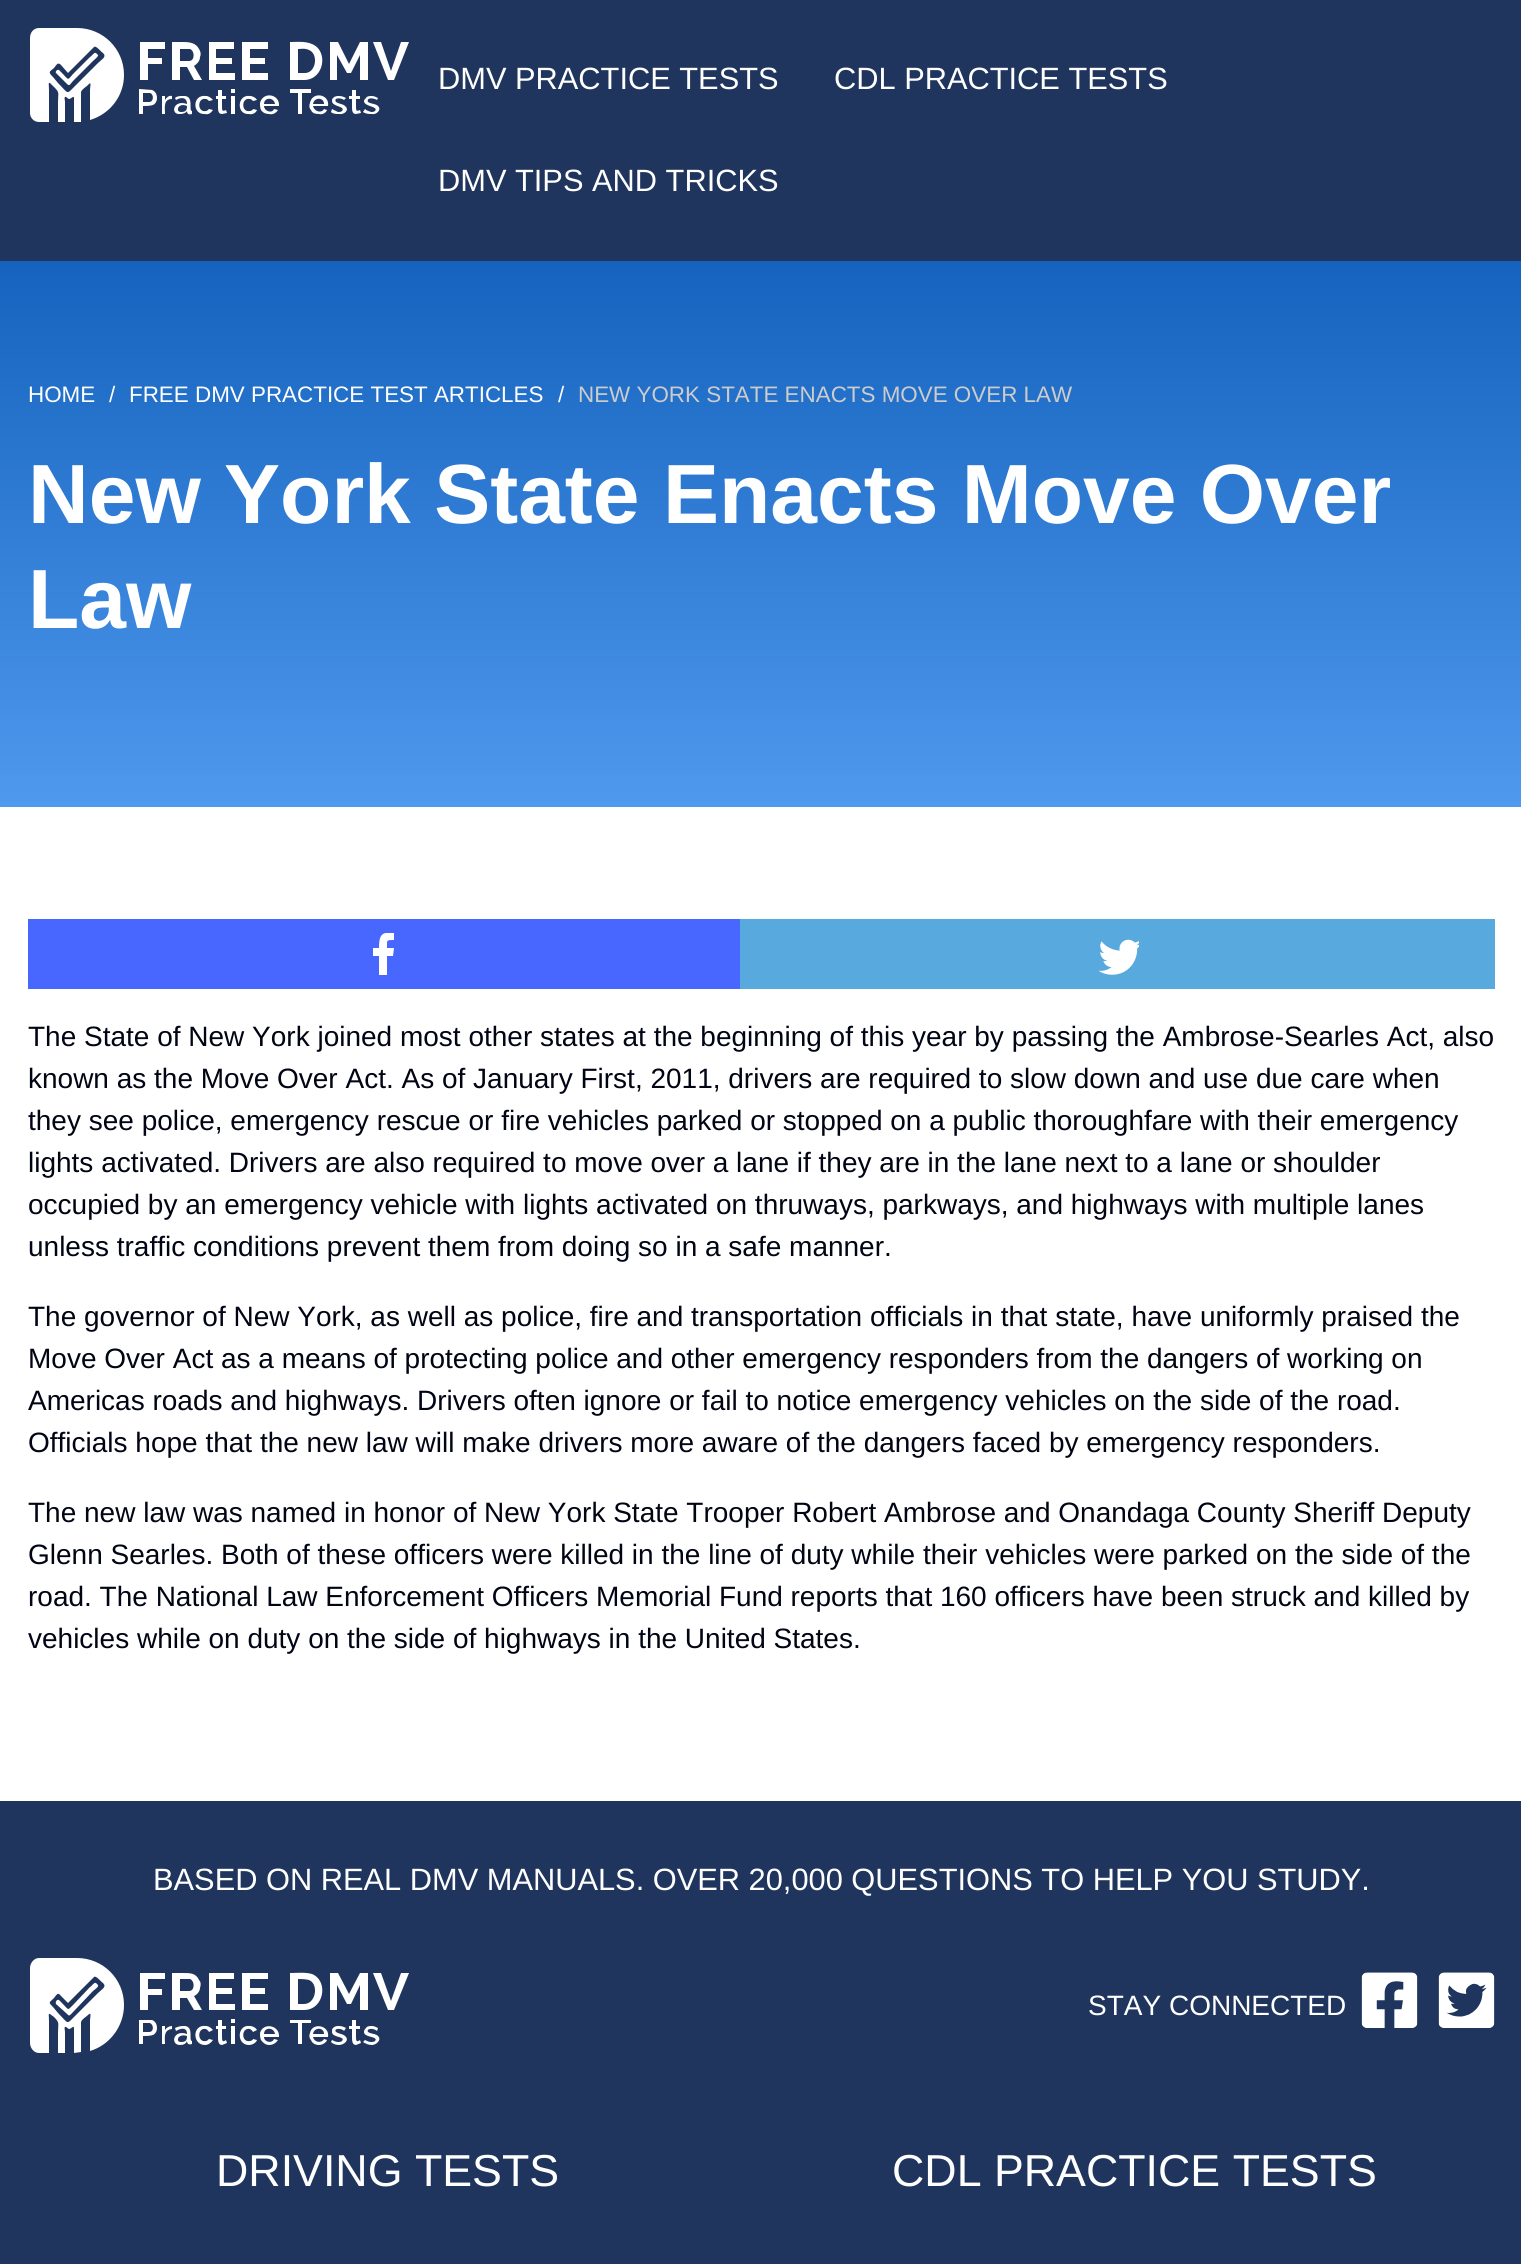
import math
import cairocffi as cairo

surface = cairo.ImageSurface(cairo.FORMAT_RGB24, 1521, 2264)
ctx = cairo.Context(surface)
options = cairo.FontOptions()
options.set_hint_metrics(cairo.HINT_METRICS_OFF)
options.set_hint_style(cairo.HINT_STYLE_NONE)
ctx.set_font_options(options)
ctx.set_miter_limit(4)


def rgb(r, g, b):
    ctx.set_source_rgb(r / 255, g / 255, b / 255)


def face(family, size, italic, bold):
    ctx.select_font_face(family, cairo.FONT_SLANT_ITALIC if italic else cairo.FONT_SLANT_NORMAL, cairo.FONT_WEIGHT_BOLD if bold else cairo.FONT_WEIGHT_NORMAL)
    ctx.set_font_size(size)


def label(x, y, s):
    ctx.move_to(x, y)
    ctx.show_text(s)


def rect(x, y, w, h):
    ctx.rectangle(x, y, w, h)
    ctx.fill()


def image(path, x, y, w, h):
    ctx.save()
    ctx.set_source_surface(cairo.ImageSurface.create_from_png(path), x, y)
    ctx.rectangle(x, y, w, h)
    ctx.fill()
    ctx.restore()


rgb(255, 255, 255)
ctx.paint()
rgb(32, 53, 94)
rect(0, 0, 1521, 261)
rgb(255, 255, 255)
ctx.set_fill_rule(cairo.FILL_RULE_EVEN_ODD)
ctx.new_path()
ctx.move_to(304, 80)
ctx.curve_to(324, 80, 329, 51, 312, 44)
ctx.curve_to(305, 41, 297, 42, 290, 42)
ctx.line_to(290, 80)
ctx.close_path()
ctx.move_to(148, 80)
ctx.line_to(148, 64)
ctx.line_to(162, 64)
ctx.line_to(162, 58)
ctx.line_to(148, 58)
ctx.line_to(148, 49)
ctx.line_to(165, 49)
ctx.line_to(165, 42)
ctx.line_to(140, 42)
ctx.line_to(140, 80)
ctx.close_path()
ctx.move_to(235, 80)
ctx.line_to(235, 73)
ctx.line_to(216, 73)
ctx.line_to(216, 64)
ctx.line_to(232, 64)
ctx.line_to(232, 58)
ctx.line_to(216, 58)
ctx.line_to(216, 49)
ctx.line_to(234, 49)
ctx.line_to(234, 42)
ctx.line_to(209, 42)
ctx.line_to(209, 80)
ctx.close_path()
ctx.move_to(268, 80)
ctx.line_to(268, 73)
ctx.line_to(250, 73)
ctx.line_to(250, 64)
ctx.line_to(265, 64)
ctx.line_to(265, 58)
ctx.line_to(250, 58)
ctx.line_to(250, 49)
ctx.line_to(268, 49)
ctx.line_to(268, 42)
ctx.line_to(242, 42)
ctx.line_to(242, 80)
ctx.close_path()
ctx.move_to(337, 80)
ctx.line_to(337, 55)
ctx.line_to(347, 73)
ctx.line_to(351, 73)
ctx.line_to(360, 55)
ctx.line_to(360, 80)
ctx.line_to(368, 80)
ctx.line_to(368, 42)
ctx.line_to(360, 42)
ctx.line_to(349, 64)
ctx.line_to(338, 42)
ctx.line_to(330, 42)
ctx.line_to(330, 80)
ctx.close_path()
ctx.move_to(394, 80)
ctx.line_to(409, 42)
ctx.line_to(401, 42)
ctx.line_to(391, 71)
ctx.line_to(381, 42)
ctx.line_to(373, 42)
ctx.line_to(388, 80)
ctx.close_path()
ctx.move_to(180, 80)
ctx.line_to(180, 67)
ctx.line_to(187, 67)
ctx.line_to(194, 80)
ctx.line_to(202, 80)
ctx.line_to(194, 66)
ctx.curve_to(197, 64, 200, 61, 200, 57)
ctx.curve_to(201, 55, 201, 52, 199, 49)
ctx.curve_to(196, 43, 190, 42, 183, 42)
ctx.line_to(172, 42)
ctx.line_to(172, 80)
ctx.close_path()
ctx.move_to(304, 73)
ctx.line_to(298, 73)
ctx.line_to(298, 49)
ctx.curve_to(301, 49, 305, 48, 309, 50)
ctx.curve_to(319, 54, 316, 74, 304, 73)
ctx.close_path()
ctx.move_to(189, 61)
ctx.line_to(180, 61)
ctx.line_to(180, 49)
ctx.line_to(190, 49)
ctx.curve_to(195, 51, 195, 61, 189, 61)
ctx.close_path()
ctx.fill()
ctx.new_path()
ctx.move_to(235, 93)
ctx.line_to(235, 89)
ctx.line_to(231, 89)
ctx.line_to(231, 93)
ctx.close_path()
ctx.move_to(143, 114)
ctx.line_to(143, 106)
ctx.curve_to(146, 106, 150, 106, 153, 105)
ctx.curve_to(159, 102, 158, 92, 152, 90)
ctx.line_to(139, 89)
ctx.line_to(139, 114)
ctx.close_path()
ctx.move_to(302, 114)
ctx.line_to(302, 93)
ctx.line_to(311, 93)
ctx.line_to(311, 89)
ctx.line_to(290, 89)
ctx.line_to(290, 93)
ctx.line_to(298, 93)
ctx.line_to(298, 114)
ctx.close_path()
ctx.move_to(222, 114)
ctx.line_to(227, 113)
ctx.line_to(226, 110)
ctx.curve_to(222, 112, 222, 110, 222, 106)
ctx.line_to(222, 99)
ctx.line_to(226, 99)
ctx.line_to(226, 96)
ctx.line_to(222, 96)
ctx.line_to(222, 90)
ctx.line_to(218, 90)
ctx.line_to(218, 96)
ctx.line_to(216, 96)
ctx.line_to(216, 99)
ctx.line_to(218, 99)
ctx.line_to(218, 106)
ctx.curve_to(218, 110, 218, 114, 222, 114)
ctx.close_path()
ctx.move_to(356, 114)
ctx.line_to(361, 113)
ctx.line_to(360, 110)
ctx.curve_to(356, 112, 356, 110, 356, 106)
ctx.line_to(356, 99)
ctx.line_to(360, 99)
ctx.line_to(360, 96)
ctx.line_to(356, 96)
ctx.line_to(356, 90)
ctx.line_to(352, 90)
ctx.line_to(352, 96)
ctx.line_to(349, 96)
ctx.line_to(349, 99)
ctx.line_to(352, 99)
ctx.line_to(352, 106)
ctx.curve_to(352, 110, 352, 114, 356, 114)
ctx.close_path()
ctx.move_to(149, 102)
ctx.line_to(143, 102)
ctx.line_to(143, 93)
ctx.line_to(150, 93)
ctx.curve_to(154, 94, 154, 102, 149, 102)
ctx.close_path()
ctx.move_to(180, 114)
ctx.curve_to(183, 114, 186, 113, 187, 111)
ctx.curve_to(187, 114, 189, 115, 192, 114)
ctx.line_to(192, 111)
ctx.curve_to(188, 111, 195, 95, 183, 96)
ctx.curve_to(180, 96, 177, 96, 175, 98)
ctx.line_to(176, 100)
ctx.curve_to(181, 97, 187, 97, 187, 104)
ctx.curve_to(173, 99, 170, 115, 180, 114)
ctx.close_path()
ctx.move_to(269, 114)
ctx.curve_to(273, 115, 276, 113, 278, 110)
ctx.line_to(274, 109)
ctx.curve_to(272, 114, 264, 111, 264, 106)
ctx.line_to(279, 106)
ctx.curve_to(280, 94, 263, 91, 260, 103)
ctx.curve_to(260, 105, 260, 108, 261, 110)
ctx.curve_to(263, 113, 266, 114, 269, 114)
ctx.close_path()
ctx.move_to(319, 114)
ctx.curve_to(322, 115, 326, 113, 327, 110)
ctx.line_to(324, 109)
ctx.curve_to(321, 114, 314, 111, 313, 106)
ctx.line_to(328, 106)
ctx.curve_to(330, 94, 312, 91, 310, 103)
ctx.curve_to(309, 105, 309, 108, 311, 110)
ctx.curve_to(312, 113, 315, 114, 319, 114)
ctx.close_path()
ctx.move_to(249, 114)
ctx.curve_to(252, 115, 256, 113, 257, 110)
ctx.line_to(253, 109)
ctx.curve_to(253, 110, 251, 111, 250, 111)
ctx.curve_to(241, 113, 241, 97, 250, 99)
ctx.curve_to(251, 99, 252, 100, 253, 101)
ctx.line_to(257, 100)
ctx.curve_to(256, 98, 253, 96, 250, 96)
ctx.curve_to(237, 94, 236, 115, 249, 114)
ctx.close_path()
ctx.move_to(339, 114)
ctx.curve_to(344, 115, 350, 110, 345, 106)
ctx.curve_to(343, 104, 340, 104, 338, 103)
ctx.line_to(336, 102)
ctx.curve_to(333, 97, 342, 98, 344, 100)
ctx.line_to(346, 98)
ctx.curve_to(344, 97, 342, 96, 339, 96)
ctx.curve_to(337, 96, 335, 96, 333, 98)
ctx.curve_to(332, 99, 332, 100, 332, 101)
ctx.curve_to(332, 107, 346, 106, 342, 111)
ctx.curve_to(341, 112, 339, 112, 338, 112)
ctx.curve_to(336, 111, 334, 110, 332, 109)
ctx.line_to(331, 112)
ctx.curve_to(333, 114, 336, 114, 339, 114)
ctx.close_path()
ctx.move_to(372, 114)
ctx.curve_to(376, 115, 382, 110, 378, 106)
ctx.curve_to(376, 104, 373, 104, 370, 103)
ctx.line_to(368, 102)
ctx.curve_to(366, 97, 374, 98, 377, 100)
ctx.line_to(378, 98)
ctx.curve_to(376, 97, 374, 96, 372, 96)
ctx.curve_to(370, 96, 367, 96, 366, 98)
ctx.curve_to(365, 99, 364, 100, 364, 101)
ctx.curve_to(364, 107, 379, 106, 375, 111)
ctx.curve_to(374, 112, 372, 112, 371, 112)
ctx.curve_to(369, 111, 367, 111, 365, 109)
ctx.line_to(363, 112)
ctx.curve_to(366, 114, 369, 114, 372, 114)
ctx.close_path()
ctx.move_to(205, 114)
ctx.curve_to(208, 115, 211, 113, 213, 110)
ctx.line_to(209, 109)
ctx.curve_to(208, 110, 207, 111, 206, 111)
ctx.curve_to(197, 113, 197, 97, 206, 99)
ctx.curve_to(207, 99, 208, 100, 209, 101)
ctx.line_to(213, 100)
ctx.curve_to(211, 98, 209, 96, 206, 96)
ctx.curve_to(192, 94, 192, 115, 205, 114)
ctx.close_path()
ctx.move_to(165, 114)
ctx.curve_to(165, 108, 163, 99, 172, 99)
ctx.line_to(172, 96)
ctx.curve_to(169, 95, 166, 98, 165, 100)
ctx.line_to(165, 96)
ctx.line_to(162, 96)
ctx.line_to(162, 114)
ctx.close_path()
ctx.move_to(235, 114)
ctx.line_to(235, 96)
ctx.line_to(231, 96)
ctx.line_to(231, 114)
ctx.close_path()
ctx.move_to(313, 104)
ctx.curve_to(314, 97, 324, 97, 324, 104)
ctx.close_path()
ctx.move_to(275, 104)
ctx.line_to(264, 104)
ctx.curve_to(264, 97, 274, 97, 275, 104)
ctx.close_path()
ctx.move_to(181, 112)
ctx.curve_to(175, 112, 178, 102, 187, 106)
ctx.curve_to(187, 110, 186, 112, 181, 112)
ctx.close_path()
ctx.fill()
ctx.new_path()
ctx.move_to(124, 75)
ctx.curve_to(124, 49, 103, 28, 77, 28)
ctx.line_to(39, 28)
ctx.curve_to(34, 28, 30, 32, 30, 38)
ctx.line_to(30, 113)
ctx.curve_to(30, 118, 34, 122, 39, 122)
ctx.line_to(49, 122)
ctx.line_to(49, 91)
ctx.curve_to(49, 85, 48, 82, 50, 83)
ctx.line_to(54, 87)
ctx.curve_to(60, 93, 58, 92, 58, 103)
ctx.line_to(58, 122)
ctx.line_to(65, 122)
ctx.line_to(65, 102)
ctx.curve_to(65, 100, 64, 98, 65, 97)
ctx.curve_to(66, 96, 68, 99, 69, 99)
ctx.curve_to(71, 99, 74, 95, 74, 98)
ctx.line_to(74, 122)
ctx.line_to(81, 122)
ctx.line_to(81, 92)
ctx.curve_to(82, 89, 86, 87, 88, 85)
ctx.curve_to(92, 80, 90, 87, 90, 90)
ctx.line_to(90, 120)
ctx.curve_to(110, 114, 124, 96, 124, 75)
ctx.close_path()
ctx.move_to(94, 47)
ctx.curve_to(96, 45, 101, 52, 103, 53)
ctx.curve_to(107, 57, 102, 59, 98, 63)
ctx.line_to(75, 86)
ctx.curve_to(66, 95, 69, 94, 58, 83)
ctx.line_to(53, 77)
ctx.curve_to(48, 72, 49, 72, 54, 68)
ctx.curve_to(57, 64, 58, 62, 61, 65)
ctx.line_to(68, 73)
ctx.close_path()
ctx.move_to(96, 53)
ctx.curve_to(94, 52, 92, 56, 90, 57)
ctx.line_to(73, 74)
ctx.curve_to(67, 81, 69, 80, 62, 73)
ctx.line_to(59, 70)
ctx.curve_to(57, 69, 55, 72, 56, 73)
ctx.line_to(66, 83)
ctx.curve_to(70, 87, 69, 85, 74, 80)
ctx.line_to(93, 61)
ctx.curve_to(94, 60, 99, 56, 98, 55)
ctx.close_path()
ctx.fill()
face('Liberation Sans', 30.8, 0, 0)
label(438, 89, 'DMV PRACTICE TESTS')
label(834, 89, 'CDL PRACTICE TESTS')
label(438, 191, 'DMV TIPS AND TRICKS')
gradient = cairo.LinearGradient(761, 261, 761, 807)
gradient.add_color_stop_rgba(0, 0.082, 0.388, 0.745, 1)
gradient.add_color_stop_rgba(1, 0.31, 0.6, 0.933, 1)
ctx.set_source(gradient)
rect(0, 261, 1521, 546)
face('Liberation Sans', 22.4, 0, 0)
rgb(255, 255, 255)
label(28, 402, 'HOME')
label(109, 402, '/')
label(129, 402, 'FREE DMV PRACTICE TEST ARTICLES')
label(558, 402, '/')
rgb(204, 204, 204)
label(578, 402, 'NEW YORK STATE ENACTS MOVE OVER LAW')
face('Liberation Sans', 84, 0, 1)
rgb(255, 255, 255)
label(28, 523, 'New York State Enacts Move Over')
label(28, 628, 'Law')
rgb(72, 103, 255)
rect(28, 919, 712, 70)
ctx.save()
ctx.set_fill_rule(cairo.FILL_RULE_WINDING)
ctx.rectangle(373, 933, 23, 42)
ctx.clip()
rgb(255, 255, 255)
ctx.new_path()
ctx.move_to(379, 975)
ctx.line_to(379, 956)
ctx.line_to(373, 956)
ctx.line_to(373, 948)
ctx.line_to(379, 948)
ctx.curve_to(379, 936, 381, 931, 394, 933)
ctx.line_to(394, 940)
ctx.curve_to(386, 940, 387, 940, 387, 948)
ctx.line_to(394, 948)
ctx.line_to(393, 956)
ctx.line_to(387, 956)
ctx.line_to(387, 975)
ctx.fill()
ctx.restore()
rgb(88, 169, 222)
rect(740, 919, 755, 70)
image('image0.png', 1098, 939, 41, 36)
face('Liberation Sans', 28, 0, 0)
rgb(0, 4, 19)
label(28, 1046, 'The State of New York joined most other states at the beginning of this year by passing the Ambrose-Searles Act, also')
label(28, 1088, 'known as the Move Over Act. As of January First, 2011, drivers are required to slow down and use due care when')
label(28, 1130, 'they see police, emergency rescue or fire vehicles parked or stopped on a public thoroughfare with their emergency')
label(28, 1172, 'lights activated. Drivers are also required to move over a lane if they are in the lane next to a lane or shoulder')
label(28, 1214, 'occupied by an emergency vehicle with lights activated on thruways, parkways, and highways with multiple lanes')
label(28, 1256, 'unless traffic conditions prevent them from doing so in a safe manner.')
label(28, 1326, 'The governor of New York, as well as police, fire and transportation officials in that state, have uniformly praised the')
label(28, 1368, 'Move Over Act as a means of protecting police and other emergency responders from the dangers of working on')
label(28, 1410, 'Americas roads and highways. Drivers often ignore or fail to notice emergency vehicles on the side of the road.')
label(28, 1452, 'Officials hope that the new law will make drivers more aware of the dangers faced by emergency responders.')
label(28, 1522, 'The new law was named in honor of New York State Trooper Robert Ambrose and Onandaga County Sheriff Deputy')
label(28, 1564, 'Glenn Searles. Both of these officers were killed in the line of duty while their vehicles were parked on the side of the')
label(28, 1606, 'road. The National Law Enforcement Officers Memorial Fund reports that 160 officers have been struck and killed by')
label(28, 1648, 'vehicles while on duty on the side of highways in the United States.')
rgb(32, 53, 94)
rect(0, 1801, 1521, 463)
face('Liberation Sans', 30.8, 0, 0)
rgb(255, 255, 255)
label(153, 1890, 'BASED ON REAL DMV MANUALS. OVER 20,000 QUESTIONS TO HELP YOU STUDY.')
ctx.new_path()
ctx.move_to(304, 2010)
ctx.curve_to(324, 2010, 329, 1981, 312, 1974)
ctx.curve_to(305, 1972, 297, 1973, 290, 1973)
ctx.line_to(290, 2010)
ctx.close_path()
ctx.move_to(148, 2010)
ctx.line_to(148, 1995)
ctx.line_to(162, 1995)
ctx.line_to(162, 1989)
ctx.line_to(148, 1989)
ctx.line_to(148, 1979)
ctx.line_to(165, 1979)
ctx.line_to(165, 1973)
ctx.line_to(140, 1973)
ctx.line_to(140, 2010)
ctx.close_path()
ctx.move_to(235, 2010)
ctx.line_to(235, 2004)
ctx.line_to(216, 2004)
ctx.line_to(216, 1994)
ctx.line_to(232, 1994)
ctx.line_to(232, 1988)
ctx.line_to(216, 1988)
ctx.line_to(216, 1979)
ctx.line_to(234, 1979)
ctx.line_to(234, 1973)
ctx.line_to(209, 1973)
ctx.line_to(209, 2010)
ctx.close_path()
ctx.move_to(268, 2010)
ctx.line_to(268, 2004)
ctx.line_to(250, 2004)
ctx.line_to(250, 1994)
ctx.line_to(265, 1994)
ctx.line_to(265, 1988)
ctx.line_to(250, 1988)
ctx.line_to(250, 1979)
ctx.line_to(268, 1979)
ctx.line_to(268, 1973)
ctx.line_to(242, 1973)
ctx.line_to(242, 2010)
ctx.close_path()
ctx.move_to(337, 2010)
ctx.line_to(337, 1985)
ctx.line_to(347, 2004)
ctx.line_to(351, 2004)
ctx.line_to(360, 1985)
ctx.line_to(360, 2010)
ctx.line_to(368, 2010)
ctx.line_to(368, 1973)
ctx.line_to(360, 1973)
ctx.line_to(349, 1994)
ctx.line_to(338, 1973)
ctx.line_to(330, 1973)
ctx.line_to(330, 2010)
ctx.close_path()
ctx.move_to(394, 2010)
ctx.line_to(409, 1973)
ctx.line_to(401, 1973)
ctx.line_to(391, 2001)
ctx.line_to(381, 1973)
ctx.line_to(373, 1973)
ctx.line_to(388, 2010)
ctx.close_path()
ctx.move_to(180, 2010)
ctx.line_to(180, 1998)
ctx.line_to(187, 1998)
ctx.line_to(194, 2010)
ctx.line_to(202, 2010)
ctx.line_to(194, 1996)
ctx.curve_to(197, 1995, 200, 1991, 200, 1988)
ctx.curve_to(201, 1985, 201, 1982, 199, 1980)
ctx.curve_to(196, 1973, 190, 1973, 183, 1973)
ctx.line_to(172, 1973)
ctx.line_to(172, 2010)
ctx.close_path()
ctx.move_to(304, 2004)
ctx.line_to(298, 2004)
ctx.line_to(298, 1979)
ctx.curve_to(301, 1979, 305, 1979, 309, 1980)
ctx.curve_to(319, 1984, 316, 2004, 304, 2004)
ctx.close_path()
ctx.move_to(189, 1991)
ctx.line_to(180, 1991)
ctx.line_to(180, 1979)
ctx.line_to(190, 1979)
ctx.curve_to(195, 1981, 195, 1991, 189, 1991)
ctx.close_path()
ctx.fill()
ctx.new_path()
ctx.move_to(235, 2023)
ctx.line_to(235, 2019)
ctx.line_to(231, 2019)
ctx.line_to(231, 2023)
ctx.close_path()
ctx.move_to(143, 2044)
ctx.line_to(143, 2036)
ctx.curve_to(146, 2036, 150, 2036, 153, 2035)
ctx.curve_to(159, 2032, 158, 2022, 152, 2020)
ctx.line_to(139, 2020)
ctx.line_to(139, 2044)
ctx.close_path()
ctx.move_to(302, 2044)
ctx.line_to(302, 2023)
ctx.line_to(311, 2023)
ctx.line_to(311, 2020)
ctx.line_to(290, 2020)
ctx.line_to(290, 2023)
ctx.line_to(298, 2023)
ctx.line_to(298, 2044)
ctx.close_path()
ctx.move_to(222, 2045)
ctx.line_to(227, 2043)
ctx.line_to(226, 2040)
ctx.curve_to(222, 2043, 222, 2040, 222, 2036)
ctx.line_to(222, 2029)
ctx.line_to(226, 2029)
ctx.line_to(226, 2026)
ctx.line_to(222, 2026)
ctx.line_to(222, 2020)
ctx.line_to(218, 2020)
ctx.line_to(218, 2026)
ctx.line_to(216, 2026)
ctx.line_to(216, 2029)
ctx.line_to(218, 2029)
ctx.line_to(218, 2037)
ctx.curve_to(218, 2040, 218, 2045, 222, 2045)
ctx.close_path()
ctx.move_to(356, 2045)
ctx.line_to(361, 2043)
ctx.line_to(360, 2040)
ctx.curve_to(356, 2043, 356, 2040, 356, 2036)
ctx.line_to(356, 2029)
ctx.line_to(360, 2029)
ctx.line_to(360, 2026)
ctx.line_to(356, 2026)
ctx.line_to(356, 2020)
ctx.line_to(352, 2020)
ctx.line_to(352, 2026)
ctx.line_to(349, 2026)
ctx.line_to(349, 2029)
ctx.line_to(352, 2029)
ctx.line_to(352, 2037)
ctx.curve_to(352, 2040, 352, 2045, 356, 2045)
ctx.close_path()
ctx.move_to(149, 2032)
ctx.line_to(143, 2032)
ctx.line_to(143, 2023)
ctx.line_to(150, 2023)
ctx.curve_to(154, 2025, 154, 2032, 149, 2032)
ctx.close_path()
ctx.move_to(180, 2045)
ctx.curve_to(183, 2045, 186, 2044, 187, 2041)
ctx.curve_to(187, 2044, 189, 2045, 192, 2044)
ctx.line_to(192, 2041)
ctx.curve_to(188, 2041, 195, 2025, 183, 2026)
ctx.curve_to(180, 2026, 177, 2027, 175, 2028)
ctx.line_to(176, 2031)
ctx.curve_to(181, 2028, 187, 2027, 187, 2034)
ctx.curve_to(173, 2029, 170, 2045, 180, 2045)
ctx.close_path()
ctx.move_to(269, 2045)
ctx.curve_to(273, 2045, 276, 2043, 278, 2040)
ctx.line_to(274, 2039)
ctx.curve_to(272, 2044, 264, 2042, 264, 2037)
ctx.line_to(279, 2037)
ctx.curve_to(280, 2025, 263, 2022, 260, 2033)
ctx.curve_to(260, 2035, 260, 2038, 261, 2040)
ctx.curve_to(263, 2043, 266, 2045, 269, 2045)
ctx.close_path()
ctx.move_to(319, 2045)
ctx.curve_to(322, 2045, 326, 2043, 327, 2040)
ctx.line_to(324, 2039)
ctx.curve_to(321, 2044, 314, 2042, 313, 2037)
ctx.line_to(328, 2037)
ctx.curve_to(330, 2025, 312, 2022, 310, 2033)
ctx.curve_to(309, 2035, 309, 2038, 311, 2040)
ctx.curve_to(312, 2043, 315, 2045, 319, 2045)
ctx.close_path()
ctx.move_to(249, 2045)
ctx.curve_to(252, 2045, 256, 2043, 257, 2040)
ctx.line_to(253, 2039)
ctx.curve_to(253, 2040, 251, 2041, 250, 2041)
ctx.curve_to(241, 2043, 241, 2027, 250, 2029)
ctx.curve_to(251, 2030, 252, 2030, 253, 2032)
ctx.line_to(257, 2030)
ctx.curve_to(256, 2028, 253, 2026, 250, 2026)
ctx.curve_to(237, 2024, 236, 2045, 249, 2045)
ctx.close_path()
ctx.move_to(339, 2045)
ctx.curve_to(344, 2045, 350, 2040, 345, 2036)
ctx.curve_to(343, 2034, 340, 2034, 338, 2033)
ctx.line_to(336, 2032)
ctx.curve_to(333, 2028, 342, 2028, 344, 2031)
ctx.line_to(346, 2028)
ctx.curve_to(344, 2027, 342, 2026, 339, 2026)
ctx.curve_to(337, 2026, 335, 2026, 333, 2028)
ctx.curve_to(332, 2029, 332, 2030, 332, 2032)
ctx.curve_to(332, 2038, 346, 2036, 342, 2041)
ctx.curve_to(341, 2042, 339, 2042, 338, 2042)
ctx.curve_to(336, 2042, 334, 2041, 332, 2040)
ctx.line_to(331, 2042)
ctx.curve_to(333, 2044, 336, 2045, 339, 2045)
ctx.close_path()
ctx.move_to(372, 2045)
ctx.curve_to(376, 2045, 382, 2040, 378, 2036)
ctx.curve_to(376, 2034, 373, 2034, 370, 2033)
ctx.line_to(368, 2032)
ctx.curve_to(366, 2028, 374, 2028, 377, 2031)
ctx.line_to(378, 2028)
ctx.curve_to(376, 2027, 374, 2026, 372, 2026)
ctx.curve_to(370, 2026, 367, 2026, 366, 2028)
ctx.curve_to(365, 2029, 364, 2030, 364, 2032)
ctx.curve_to(364, 2038, 379, 2036, 375, 2041)
ctx.curve_to(374, 2042, 372, 2042, 371, 2042)
ctx.curve_to(369, 2042, 367, 2041, 365, 2040)
ctx.line_to(363, 2042)
ctx.curve_to(366, 2044, 369, 2045, 372, 2045)
ctx.close_path()
ctx.move_to(205, 2045)
ctx.curve_to(208, 2045, 211, 2043, 213, 2040)
ctx.line_to(209, 2039)
ctx.curve_to(208, 2040, 207, 2041, 206, 2041)
ctx.curve_to(197, 2043, 197, 2027, 206, 2029)
ctx.curve_to(207, 2030, 208, 2030, 209, 2032)
ctx.line_to(213, 2030)
ctx.curve_to(211, 2028, 209, 2026, 206, 2026)
ctx.curve_to(192, 2024, 192, 2045, 205, 2045)
ctx.close_path()
ctx.move_to(165, 2044)
ctx.curve_to(165, 2038, 163, 2030, 172, 2029)
ctx.line_to(172, 2026)
ctx.curve_to(169, 2026, 166, 2028, 165, 2030)
ctx.line_to(165, 2026)
ctx.line_to(162, 2026)
ctx.line_to(162, 2044)
ctx.close_path()
ctx.move_to(235, 2044)
ctx.line_to(235, 2026)
ctx.line_to(231, 2026)
ctx.line_to(231, 2044)
ctx.close_path()
ctx.move_to(324, 2034)
ctx.line_to(313, 2034)
ctx.curve_to(314, 2027, 324, 2027, 324, 2034)
ctx.close_path()
ctx.move_to(275, 2034)
ctx.line_to(264, 2034)
ctx.curve_to(264, 2027, 274, 2027, 275, 2034)
ctx.close_path()
ctx.move_to(181, 2042)
ctx.curve_to(175, 2042, 178, 2033, 187, 2036)
ctx.curve_to(187, 2040, 186, 2042, 181, 2042)
ctx.close_path()
ctx.fill()
ctx.new_path()
ctx.move_to(77, 1958)
ctx.line_to(39, 1958)
ctx.curve_to(34, 1958, 30, 1963, 30, 1968)
ctx.line_to(30, 2043)
ctx.curve_to(30, 2048, 34, 2053, 39, 2053)
ctx.line_to(49, 2053)
ctx.line_to(49, 2021)
ctx.curve_to(49, 2016, 48, 2013, 50, 2014)
ctx.line_to(54, 2017)
ctx.curve_to(60, 2023, 58, 2023, 58, 2033)
ctx.line_to(58, 2053)
ctx.line_to(65, 2053)
ctx.line_to(65, 2032)
ctx.curve_to(65, 2030, 64, 2028, 65, 2027)
ctx.curve_to(66, 2026, 68, 2029, 69, 2029)
ctx.curve_to(71, 2029, 74, 2025, 74, 2028)
ctx.line_to(74, 2053)
ctx.line_to(81, 2052)
ctx.line_to(81, 2022)
ctx.curve_to(82, 2019, 86, 2017, 88, 2015)
ctx.curve_to(92, 2011, 90, 2018, 90, 2020)
ctx.line_to(90, 2051)
ctx.curve_to(110, 2045, 124, 2026, 124, 2005)
ctx.curve_to(124, 1979, 103, 1958, 77, 1958)
ctx.close_path()
ctx.move_to(94, 1977)
ctx.curve_to(96, 1975, 101, 1982, 103, 1983)
ctx.curve_to(107, 1987, 102, 1989, 98, 1993)
ctx.line_to(75, 2016)
ctx.curve_to(66, 2025, 69, 2024, 58, 2013)
ctx.line_to(53, 2007)
ctx.curve_to(48, 2002, 49, 2003, 54, 1998)
ctx.curve_to(57, 1994, 58, 1992, 61, 1996)
ctx.line_to(68, 2003)
ctx.close_path()
ctx.move_to(96, 1983)
ctx.curve_to(94, 1982, 92, 1986, 90, 1987)
ctx.line_to(73, 2005)
ctx.curve_to(67, 2011, 69, 2010, 62, 2003)
ctx.line_to(59, 2000)
ctx.curve_to(57, 1999, 55, 2002, 56, 2004)
ctx.line_to(66, 2013)
ctx.curve_to(70, 2017, 69, 2016, 74, 2011)
ctx.line_to(93, 1991)
ctx.curve_to(94, 1990, 99, 1987, 98, 1985)
ctx.close_path()
ctx.fill()
face('Liberation Sans', 28, 0, 0)
label(1088, 2015, 'STAY CONNECTED')
image('image1.png', 1361, 1972, 57, 56)
image('image2.png', 1438, 1972, 57, 56)
face('Liberation Sans', 44.75, 0, 0)
label(216, 2186, 'DRIVING TESTS')
label(892, 2186, 'CDL PRACTICE TESTS')
surface.write_to_png('render.png')
